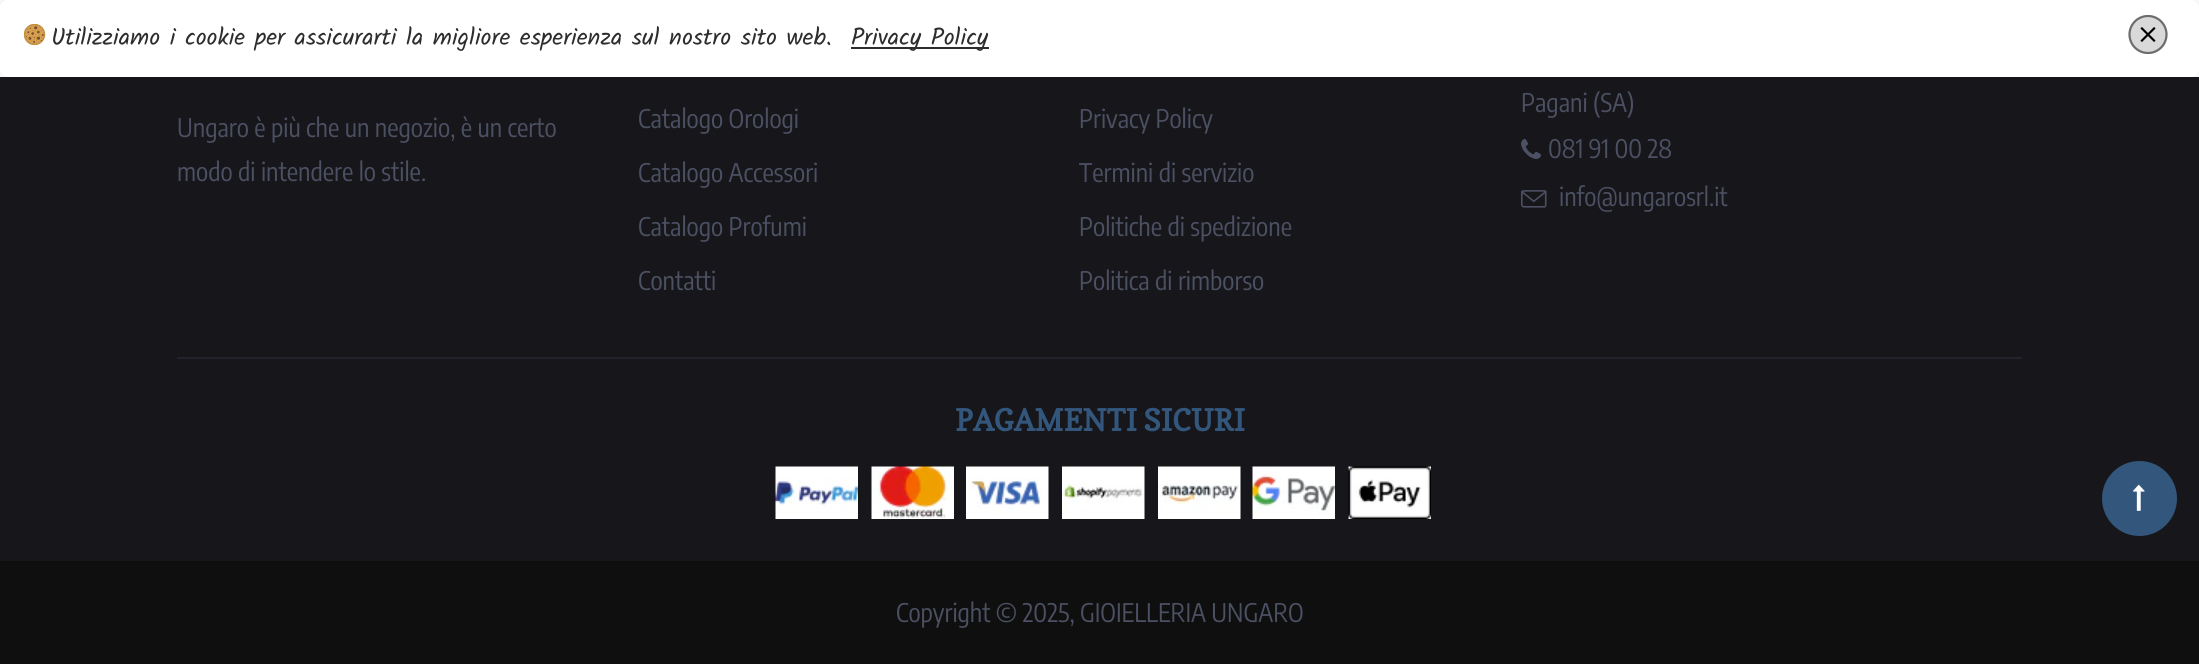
import math
import cairocffi as cairo

surface = cairo.ImageSurface(cairo.FORMAT_RGB24, 2199, 664)
ctx = cairo.Context(surface)
options = cairo.FontOptions()
options.set_hint_metrics(cairo.HINT_METRICS_OFF)
options.set_hint_style(cairo.HINT_STYLE_NONE)
ctx.set_font_options(options)
ctx.set_miter_limit(4)


def rgb(r, g, b):
    ctx.set_source_rgb(r / 255, g / 255, b / 255)


def face(family, size, italic, bold):
    ctx.select_font_face(family, cairo.FONT_SLANT_ITALIC if italic else cairo.FONT_SLANT_NORMAL, cairo.FONT_WEIGHT_BOLD if bold else cairo.FONT_WEIGHT_NORMAL)
    ctx.set_font_size(size)


def label(x, y, s):
    ctx.move_to(x, y)
    ctx.show_text(s)


def rect(x, y, w, h):
    ctx.rectangle(x, y, w, h)
    ctx.fill()


def rrect(x, y, w, h, r):
    ctx.new_sub_path()
    for i, (u, v) in enumerate([(x + w - r, y + h - r), (x + r, y + h - r), (x + r, y + r), (x + w - r, y + r)]):
        ctx.arc(u, v, r, i * math.pi / 2, (i + 1) * math.pi / 2)
    ctx.close_path()


def soft_shadow(x, y, w, h, r, blur, alpha):
    ctx.push_group_with_content(cairo.CONTENT_ALPHA)
    ctx.set_operator(cairo.OPERATOR_SOURCE)
    for i in range(15, -16, -2):
        e = blur * i / 6
        if min(w, h) + 2 * e > 0:
            ctx.set_source_rgba(0, 0, 0, alpha * math.erfc((i - 1) / 8.5) / 2)
            rrect(x - e, y - e, w + 2 * e, h + 2 * e, max(0, min(r + e + blur * .6, min(w, h) / 2 + e)))
            ctx.fill()
    ctx.mask(ctx.pop_group())


def image(path, x, y, w, h):
    ctx.save()
    ctx.set_source_surface(cairo.ImageSurface.create_from_png(path), x, y)
    ctx.rectangle(x, y, w, h)
    ctx.fill()
    ctx.restore()


rgb(15, 15, 15)
ctx.paint()
rgb(255, 255, 255)
rect(0, 0, 2199, 77)
rgb(23, 22, 26)
rect(0, 77, 2199, 484)
ctx.save()
ctx.set_fill_rule(cairo.FILL_RULE_EVEN_ODD)
ctx.new_path()
ctx.move_to(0, 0)
ctx.line_to(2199, 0)
ctx.line_to(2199, 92)
ctx.line_to(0, 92)
ctx.close_path()
ctx.move_to(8, 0)
ctx.line_to(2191, 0)
ctx.curve_to(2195.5, 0, 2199, 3.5, 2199, 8)
ctx.line_to(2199, 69)
ctx.curve_to(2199, 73.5, 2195.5, 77, 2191, 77)
ctx.line_to(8, 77)
ctx.curve_to(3.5, 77, 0, 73.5, 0, 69)
ctx.line_to(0, 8)
ctx.curve_to(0, 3.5, 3.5, 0, 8, 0)
ctx.close_path()
ctx.clip()
rgb(0, 0, 0)
soft_shadow(0, 0, 2199, 77, 8, 4.5, 0.12)
ctx.restore()
image('image0.png', 24, 24, 22, 21)
face('Kalam', 24, 0, 0)
rgb(45, 45, 45)
label(51, 45, 'Utilizziamo i cookie per assicurarti la migliore esperienza sul nostro sito web.')
rect(851, 47, 138, 2)
label(851, 45, 'Privacy Policy')
image('image1.png', 2128, 15, 40, 39)
face('Encode Sans Condensed', 25.5, 0, 0)
rgb(75, 80, 99)
label(177, 137, 'Ungaro è più che un negozio, è un certo')
label(177, 181, 'modo di intendere lo stile.')
label(638, 128, 'Catalogo Orologi')
label(638, 182, 'Catalogo Accessori')
label(638, 236, 'Catalogo Profumi')
label(638, 290, 'Contatti')
label(1079, 128, 'Privacy Policy')
label(1079, 182, 'Termini di servizio')
label(1079, 236, 'Politiche di spedizione')
label(1079, 290, 'Politica di rimborso')
label(1521, 112, 'Pagani (SA)')
image('image2.png', 1521, 139, 20, 20)
label(1548, 158, '081 91 00 28')
image('image3.png', 1521, 190, 26, 18)
label(1559, 206, 'info@ungarosrl.it')
rgb(36, 33, 47)
rect(177, 357, 1845, 2)
face('Copse', 30, 0, 1)
rgb(51, 86, 125)
label(955, 431, 'PAGAMENTI SICURI')
image('image4.png', 775, 466, 83, 53)
image('image5.png', 871, 466, 83, 53)
image('image6.png', 966, 466, 83, 53)
image('image7.png', 1062, 466, 83, 53)
image('image8.png', 1158, 466, 83, 53)
image('image9.png', 1252, 466, 83, 53)
image('image10.png', 1348, 466, 83, 53)
face('Encode Sans Condensed', 25.5, 0, 0)
rgb(75, 80, 99)
label(896, 622, 'Copyright © 2025, GIOIELLERIA UNGARO')
rgb(51, 86, 124)
ctx.new_path()
ctx.arc(2139.5, 498.5, 37.5, 0, 2 * math.pi)
ctx.fill()
image('image11.png', 2133, 484, 12, 27)
surface.write_to_png('render.png')
